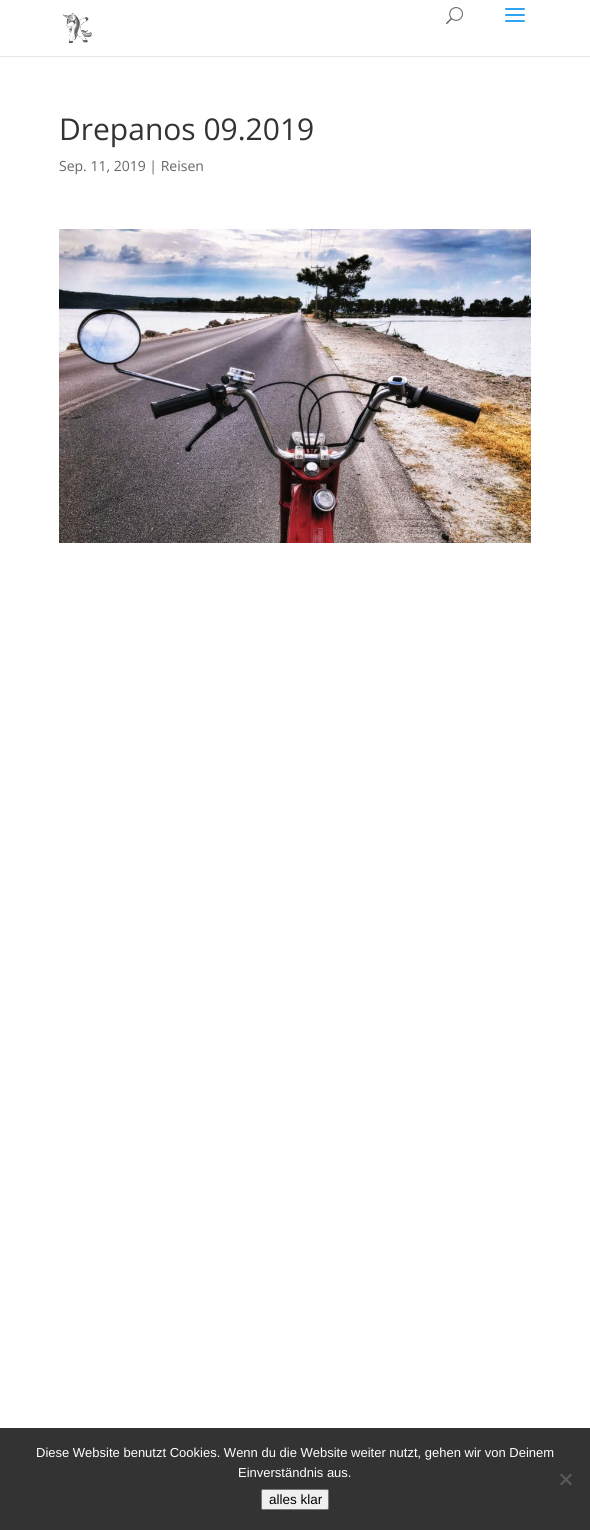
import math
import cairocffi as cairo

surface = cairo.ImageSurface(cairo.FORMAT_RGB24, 590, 1530)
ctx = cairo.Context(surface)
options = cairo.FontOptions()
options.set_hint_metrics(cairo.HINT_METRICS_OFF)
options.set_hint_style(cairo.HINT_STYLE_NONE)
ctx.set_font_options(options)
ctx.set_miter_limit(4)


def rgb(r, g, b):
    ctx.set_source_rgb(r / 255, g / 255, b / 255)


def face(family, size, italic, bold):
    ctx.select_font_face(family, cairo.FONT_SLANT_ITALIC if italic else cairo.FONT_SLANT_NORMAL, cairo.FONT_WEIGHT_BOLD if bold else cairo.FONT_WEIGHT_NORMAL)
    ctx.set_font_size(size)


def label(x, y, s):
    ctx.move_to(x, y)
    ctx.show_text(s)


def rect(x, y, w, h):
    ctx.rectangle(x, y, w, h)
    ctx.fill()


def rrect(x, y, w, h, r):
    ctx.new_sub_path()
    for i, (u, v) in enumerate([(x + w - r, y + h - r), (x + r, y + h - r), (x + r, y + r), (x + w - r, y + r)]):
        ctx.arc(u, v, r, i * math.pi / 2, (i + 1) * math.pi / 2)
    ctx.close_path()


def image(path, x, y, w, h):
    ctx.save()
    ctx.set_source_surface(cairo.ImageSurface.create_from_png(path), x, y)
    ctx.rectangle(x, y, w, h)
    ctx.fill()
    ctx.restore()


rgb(255, 255, 255)
ctx.paint()
rgb(230, 230, 230)
rect(0, 56, 590, 1)
image('image0.png', 63, 13, 29, 30)
image('image1.png', 446, 7, 17, 18)
image('image2.png', 505, 8, 20, 14)
face('Open Sans', 30, 0, 0)
rgb(51, 51, 51)
label(59, 140, 'Drepanos 09.2019')
face('Open Sans', 14, 0, 0)
rgb(102, 102, 102)
label(59, 171, 'Sep. 11, 2019 | Reisen')
image('image3.png', 59, 229, 472, 314)
rgb(51, 51, 51)
rect(0, 1428, 590, 102)
face('Liberation Sans', 13, 0, 0)
rgb(255, 255, 255)
label(36, 1457, 'Diese Website benutzt Cookies. Wenn du die Website weiter nutzt, gehen wir von Deinem')
label(238, 1477, 'Einverständnis aus.')
rgb(90, 90, 90)
ctx.new_path()
ctx.move_to(570.5, 1473.5)
ctx.line_to(572, 1475)
ctx.line_to(561.5, 1485.5)
ctx.line_to(560, 1484)
ctx.close_path()
ctx.fill()
ctx.new_path()
ctx.move_to(560, 1475)
ctx.line_to(561.5, 1473.5)
ctx.line_to(572, 1484)
ctx.line_to(570.5, 1485.5)
ctx.close_path()
ctx.fill()
rgb(239, 239, 239)
rrect(261.5, 1489.5, 67, 20, 1.5)
ctx.fill_preserve()
rgb(118, 118, 118)
ctx.set_line_width(1)
ctx.stroke()
face('Liberation Sans', 13.5, 0, 0)
rgb(0, 0, 0)
label(269, 1504, 'alles klar')
surface.write_to_png('render.png')
